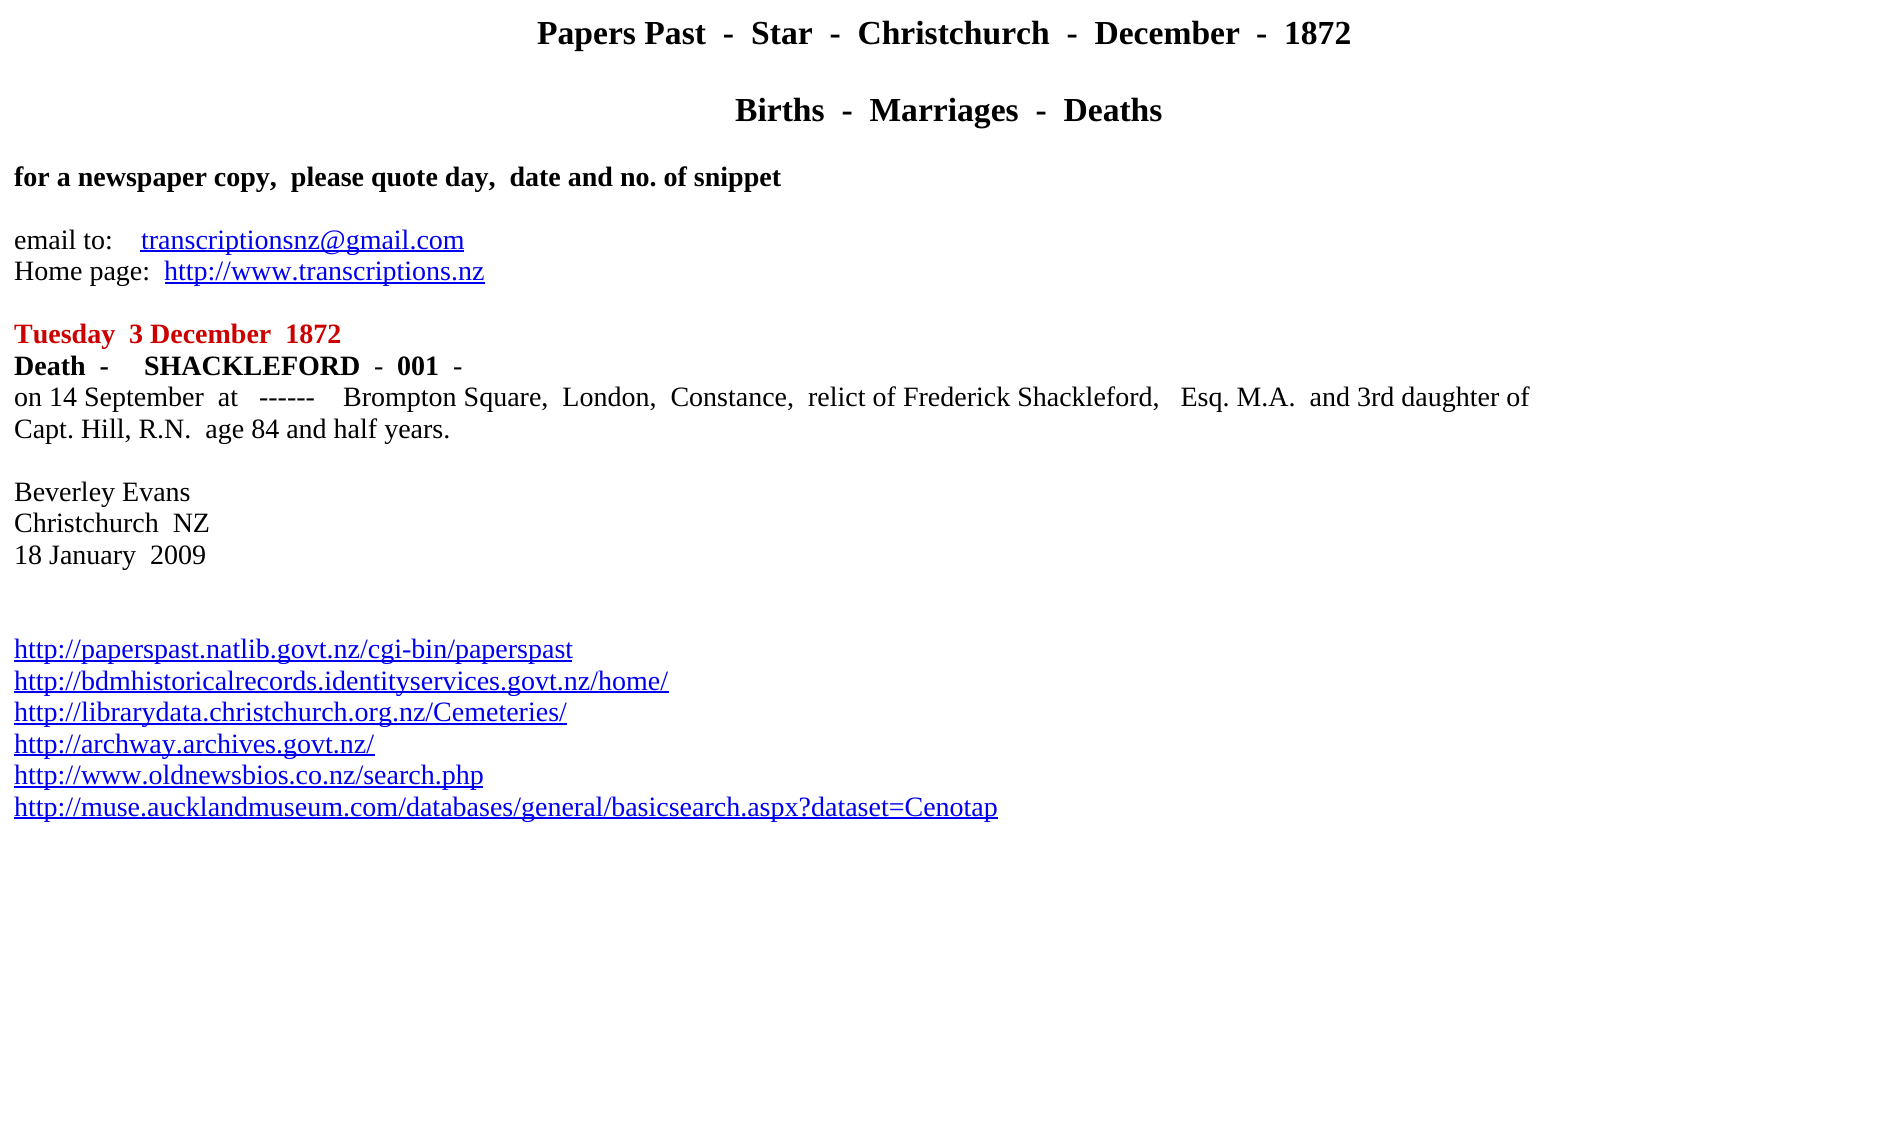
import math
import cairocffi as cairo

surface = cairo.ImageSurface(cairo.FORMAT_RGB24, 1896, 1130)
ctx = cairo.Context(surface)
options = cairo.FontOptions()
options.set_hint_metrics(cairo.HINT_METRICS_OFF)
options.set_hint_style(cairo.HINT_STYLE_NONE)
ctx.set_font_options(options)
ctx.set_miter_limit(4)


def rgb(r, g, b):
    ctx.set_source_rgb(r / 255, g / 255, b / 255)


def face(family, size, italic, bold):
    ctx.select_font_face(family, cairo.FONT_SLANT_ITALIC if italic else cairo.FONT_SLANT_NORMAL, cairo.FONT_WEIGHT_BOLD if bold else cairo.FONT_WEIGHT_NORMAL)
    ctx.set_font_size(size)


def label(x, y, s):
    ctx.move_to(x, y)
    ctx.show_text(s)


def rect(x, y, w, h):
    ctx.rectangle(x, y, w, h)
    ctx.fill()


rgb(255, 255, 255)
ctx.paint()
face('Liberation Serif', 33.6, 0, 1)
rgb(0, 0, 0)
label(537, 44, 'Papers Past  -')
label(751, 44, 'Star  -  Christchurch  -  December')
label(1256, 44, '-')
label(1284, 44, '1872')
label(735, 121, 'Births  -  Marriages  -  Deaths')
face('Liberation Serif', 28, 0, 1)
label(14, 186, 'for a newspaper copy,  please quote day,  date and no. of snippet')
face('Liberation Serif', 28, 0, 0)
label(14, 249, 'email to:')
rgb(0, 0, 238)
rect(140, 250, 324, 2)
label(141, 249, 'transcriptionsnz@gmail.com')
rgb(0, 0, 0)
label(14, 280, 'Home page:')
rgb(0, 0, 238)
rect(165, 282, 320, 2)
label(164, 280, 'http://www.transcriptions.nz')
face('Liberation Serif', 28, 0, 1)
rgb(204, 0, 0)
label(14, 343, 'Tuesday')
label(129, 343, '3 December  1872')
rgb(0, 0, 0)
label(14, 375, 'Death  -')
label(144, 375, 'SHACKLEFORD')
face('Liberation Serif', 28, 0, 0)
label(374, 375, '-')
face('Liberation Serif', 28, 0, 1)
label(397, 375, '001')
face('Liberation Serif', 28, 0, 0)
label(453, 375, '-')
label(14, 406, 'on 14 September  at   ------')
label(343, 406, 'Brompton Square,  London,  Constance,  relict of Frederick Shackleford,   Esq. M.A.  and 3rd daughter of')
label(14, 438, 'Capt. Hill, R.N.  age 84 and half years.')
label(14, 501, 'Beverley Evans')
label(14, 532, 'Christchurch  NZ')
label(14, 564, '18 January  2009')
rgb(0, 0, 238)
rect(14, 660, 558, 2)
label(14, 658, 'http://paperspast.natlib.govt.nz/cgi-bin/paperspast')
rect(14, 691, 655, 2)
label(14, 690, 'http://bdmhistoricalrecords.identityservices.govt.nz/home/')
rect(14, 723, 553, 2)
label(14, 721, 'http://librarydata.christchurch.org.nz/Cemeteries/')
rect(14, 754, 361, 2)
label(14, 753, 'http://archway.archives.govt.nz/')
rect(14, 786, 469, 2)
label(14, 784, 'http://www.oldnewsbios.co.nz/search.php')
rect(14, 817, 984, 2)
label(14, 816, 'http://muse.aucklandmuseum.com/databases/general/basicsearch.aspx?dataset=Cenotap')
surface.write_to_png('render.png')
